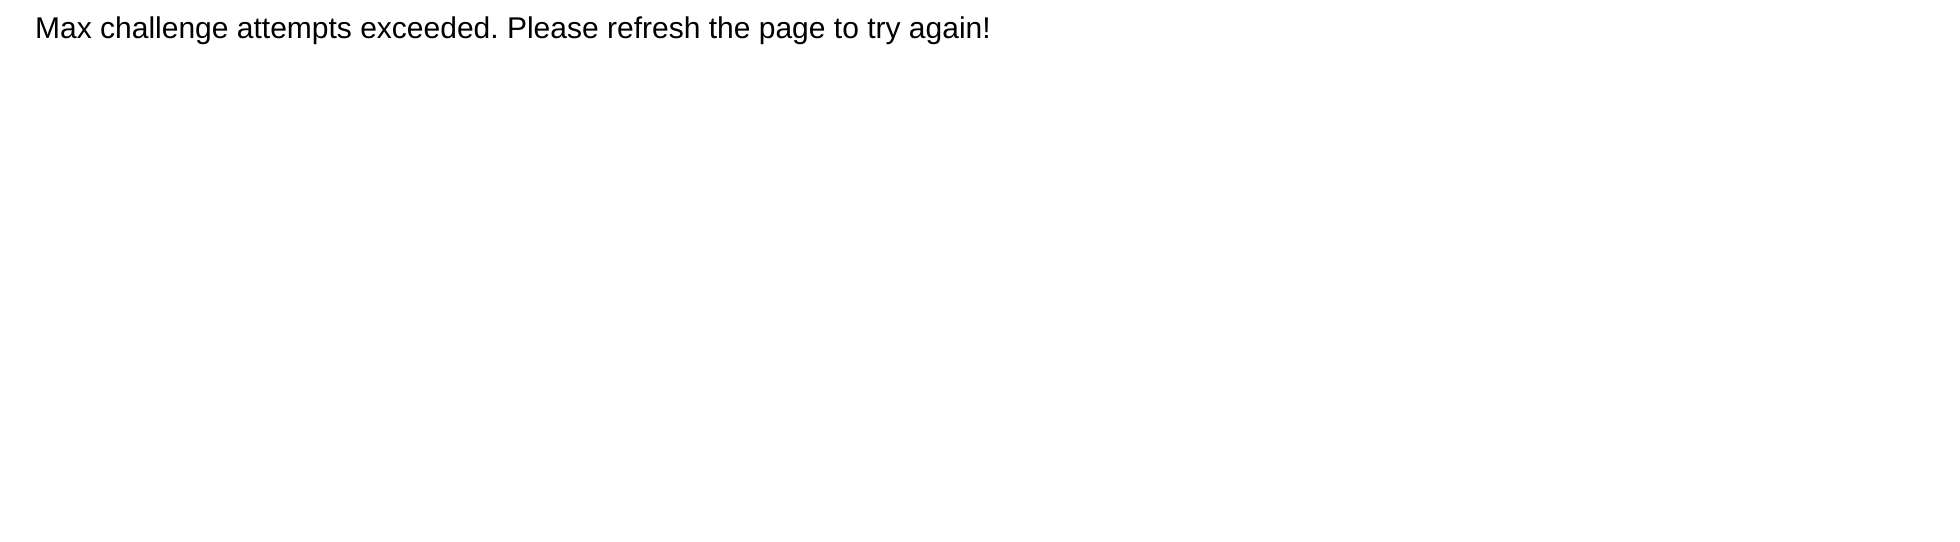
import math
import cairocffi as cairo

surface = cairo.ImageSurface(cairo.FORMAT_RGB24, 1960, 542)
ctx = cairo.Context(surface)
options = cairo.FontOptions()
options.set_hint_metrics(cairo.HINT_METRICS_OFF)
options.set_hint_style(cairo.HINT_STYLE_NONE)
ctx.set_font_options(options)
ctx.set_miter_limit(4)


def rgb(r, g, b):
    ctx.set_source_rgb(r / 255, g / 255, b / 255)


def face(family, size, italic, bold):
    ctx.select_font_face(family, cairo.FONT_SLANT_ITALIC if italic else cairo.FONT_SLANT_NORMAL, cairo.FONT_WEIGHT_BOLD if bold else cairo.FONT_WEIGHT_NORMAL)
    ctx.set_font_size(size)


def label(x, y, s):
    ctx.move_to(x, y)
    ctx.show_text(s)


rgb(255, 255, 255)
ctx.paint()
face('Liberation Sans', 30, 0, 0)
rgb(0, 0, 0)
label(35, 38, 'Max challenge attempts exceeded. Please refresh the page to try again!')
surface.write_to_png('render.png')
